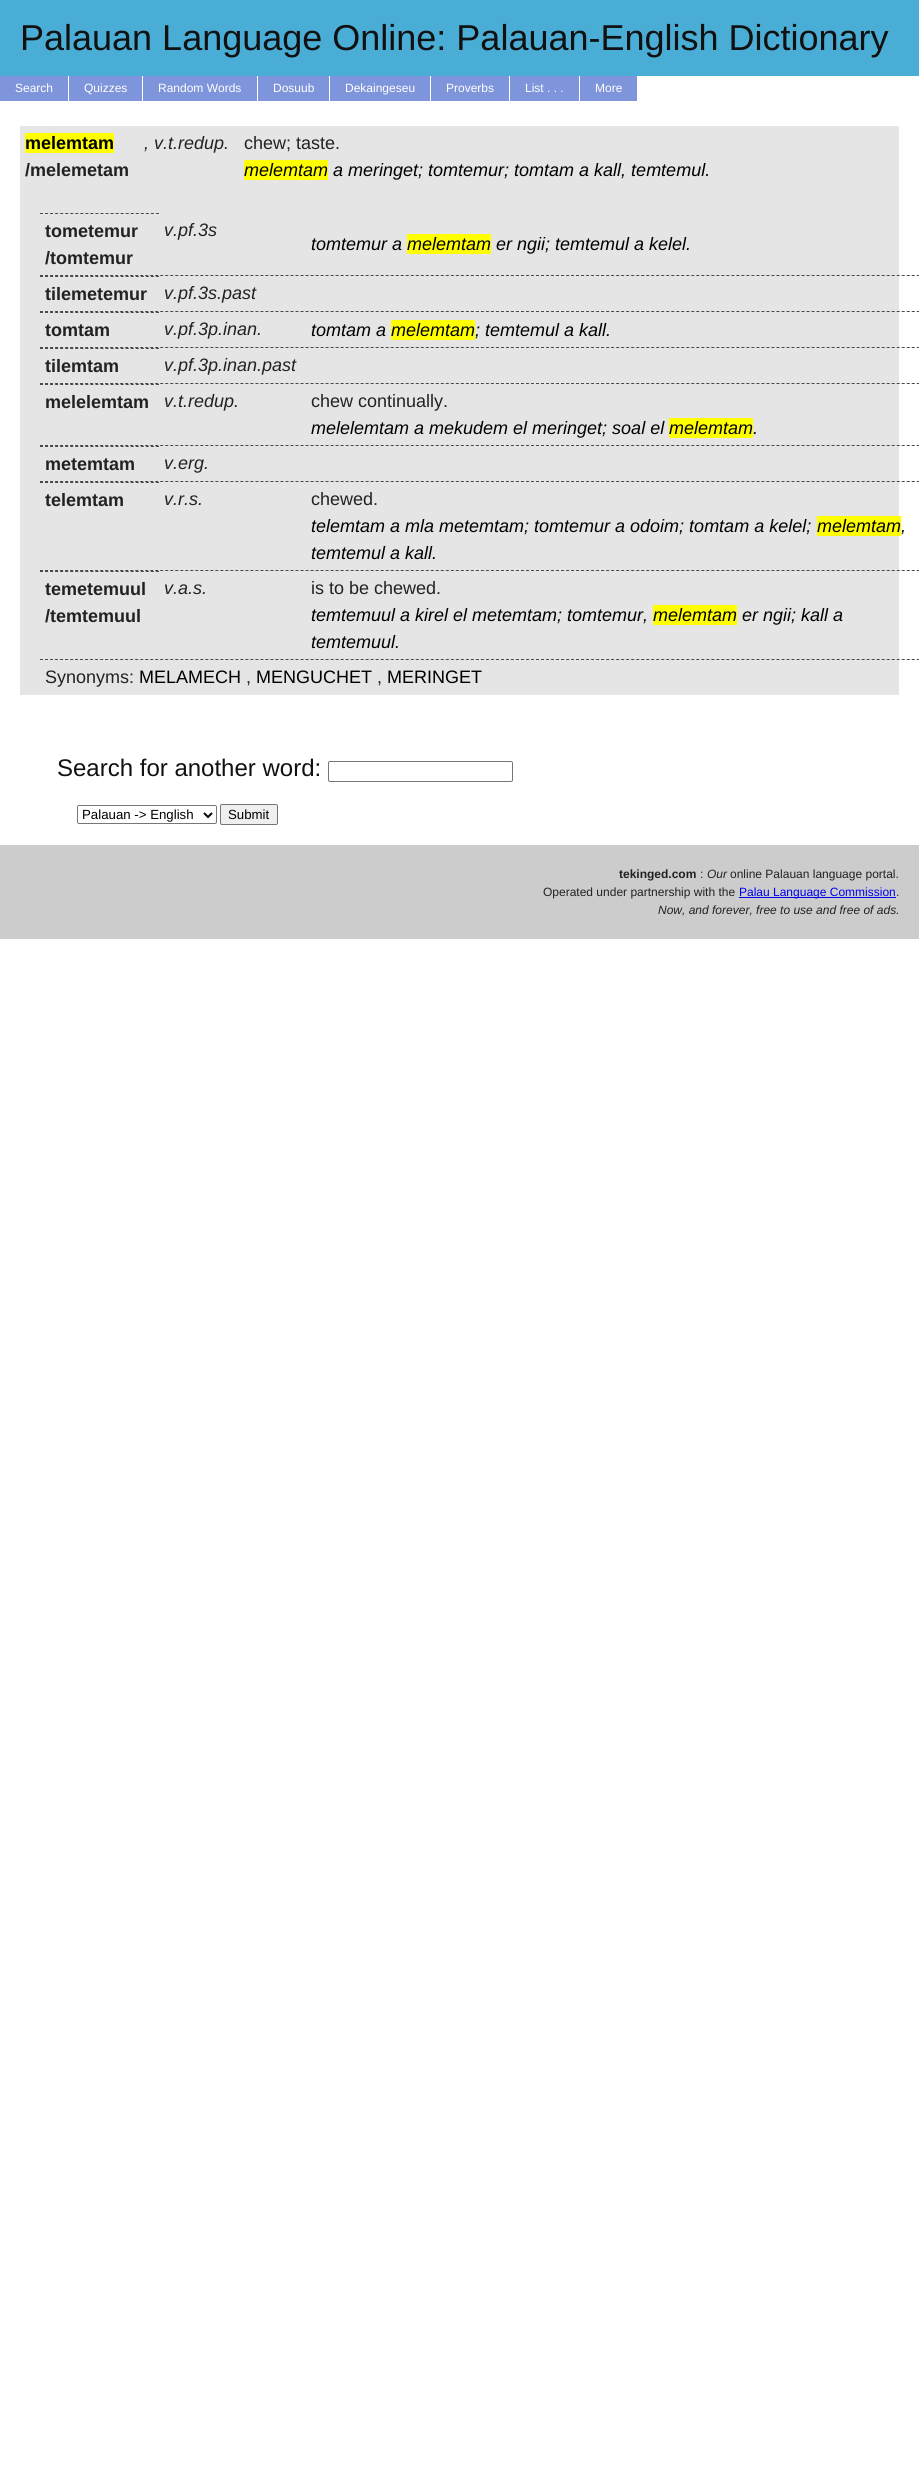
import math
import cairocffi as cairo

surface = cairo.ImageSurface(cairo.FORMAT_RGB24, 919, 2471)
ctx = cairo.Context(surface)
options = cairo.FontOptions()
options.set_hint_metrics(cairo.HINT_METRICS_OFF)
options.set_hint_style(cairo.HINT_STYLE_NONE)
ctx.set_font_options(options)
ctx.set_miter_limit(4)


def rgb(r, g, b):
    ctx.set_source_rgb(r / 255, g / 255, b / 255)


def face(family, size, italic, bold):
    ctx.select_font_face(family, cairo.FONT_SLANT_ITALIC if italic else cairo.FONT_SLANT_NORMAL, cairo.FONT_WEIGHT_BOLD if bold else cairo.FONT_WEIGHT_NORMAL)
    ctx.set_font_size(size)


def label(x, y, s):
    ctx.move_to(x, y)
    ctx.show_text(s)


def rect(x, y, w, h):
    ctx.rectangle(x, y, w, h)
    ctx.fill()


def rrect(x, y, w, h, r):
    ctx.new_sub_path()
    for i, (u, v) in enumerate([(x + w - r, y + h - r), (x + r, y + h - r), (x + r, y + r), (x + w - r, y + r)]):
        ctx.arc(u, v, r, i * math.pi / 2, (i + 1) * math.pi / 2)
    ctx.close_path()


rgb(255, 255, 255)
ctx.paint()
rgb(74, 173, 214)
rect(0, 0, 919, 76)
face('Liberation Sans', 36, 0, 0)
rgb(17, 17, 17)
label(20, 50, 'Palauan Language Online: Palauan-English Dictionary')
rgb(127, 149, 219)
rect(0, 76, 68, 25)
face('Liberation Sans', 12, 0, 0)
rgb(255, 255, 255)
label(15, 92, 'Search')
rgb(127, 149, 219)
rect(69, 76, 73, 25)
rgb(255, 255, 255)
label(84, 92, 'Quizzes')
rgb(127, 149, 219)
rect(143, 76, 114, 25)
rgb(255, 255, 255)
label(158, 92, 'Random Words')
rgb(127, 149, 219)
rect(258, 76, 71, 25)
rgb(255, 255, 255)
label(273, 92, 'Dosuub')
rgb(127, 149, 219)
rect(330, 76, 100, 25)
rgb(255, 255, 255)
label(345, 92, 'Dekaingeseu')
rgb(127, 149, 219)
rect(431, 76, 78, 25)
rgb(255, 255, 255)
label(446, 92, 'Proverbs')
rgb(127, 149, 219)
rect(510, 76, 69, 25)
rgb(255, 255, 255)
label(525, 92, 'List . . .')
rgb(127, 149, 219)
rect(580, 76, 57, 25)
rgb(255, 255, 255)
label(595, 92, 'More')
rgb(229, 229, 229)
rect(20, 126, 879, 569)
rgb(255, 255, 0)
rect(25, 133, 89, 20)
face('Liberation Sans', 18, 0, 1)
rgb(0, 0, 0)
label(25, 149, 'melemtam')
rgb(34, 34, 34)
label(25, 176, '/melemetam')
face('Liberation Sans', 18, 1, 0)
label(144, 149, ', v.t.redup.')
face('Liberation Sans', 18, 0, 0)
label(244, 149, 'chew; taste.')
rgb(255, 255, 0)
rect(244, 160, 84, 20)
face('Liberation Sans', 18, 1, 0)
rgb(0, 0, 0)
label(244, 176, 'melemtam a meringet; tomtemur; tomtam a kall, temtemul.')
ctx.new_path()
ctx.move_to(40, 275.5)
ctx.line_to(919, 275.5)
rgb(73, 73, 73)
ctx.set_line_width(1)
ctx.set_dash([3, 2.01])
ctx.stroke()
ctx.new_path()
ctx.move_to(40, 213.5)
ctx.line_to(159, 213.5)
ctx.set_dash([3, 2.04])
ctx.stroke()
face('Liberation Sans', 18, 0, 1)
rgb(34, 34, 34)
label(45, 237, 'tometemur')
label(45, 264, '/tomtemur')
face('Liberation Sans', 18, 1, 0)
label(164, 236, 'v.pf.3s')
rgb(0, 0, 0)
label(311, 250, 'tomtemur a')
rgb(255, 255, 0)
rect(407, 234, 84, 20)
rgb(0, 0, 0)
label(407, 250, 'melemtam er ngii; temtemul a kelel.')
ctx.new_path()
ctx.move_to(40, 311.5)
ctx.line_to(919, 311.5)
rgb(73, 73, 73)
ctx.set_dash([3, 2.01])
ctx.stroke()
ctx.new_path()
ctx.move_to(40, 276.5)
ctx.line_to(159, 276.5)
ctx.set_dash([3, 2.04])
ctx.stroke()
face('Liberation Sans', 18, 0, 1)
rgb(34, 34, 34)
label(45, 300, 'tilemetemur')
face('Liberation Sans', 18, 1, 0)
label(164, 299, 'v.pf.3s.past')
ctx.new_path()
ctx.move_to(40, 347.5)
ctx.line_to(919, 347.5)
rgb(73, 73, 73)
ctx.set_dash([3, 2.01])
ctx.stroke()
ctx.new_path()
ctx.move_to(40, 312.5)
ctx.line_to(159, 312.5)
ctx.set_dash([3, 2.04])
ctx.stroke()
face('Liberation Sans', 18, 0, 1)
rgb(34, 34, 34)
label(45, 336, 'tomtam')
face('Liberation Sans', 18, 1, 0)
label(164, 335, 'v.pf.3p.inan.')
rgb(0, 0, 0)
label(311, 336, 'tomtam a')
rgb(255, 255, 0)
rect(391, 320, 84, 20)
rgb(0, 0, 0)
label(391, 336, 'melemtam; temtemul a kall.')
ctx.new_path()
ctx.move_to(40, 383.5)
ctx.line_to(919, 383.5)
rgb(73, 73, 73)
ctx.set_dash([3, 2.01])
ctx.stroke()
ctx.new_path()
ctx.move_to(40, 348.5)
ctx.line_to(159, 348.5)
ctx.set_dash([3, 2.04])
ctx.stroke()
face('Liberation Sans', 18, 0, 1)
rgb(34, 34, 34)
label(45, 372, 'tilemtam')
face('Liberation Sans', 18, 1, 0)
label(164, 371, 'v.pf.3p.inan.past')
ctx.new_path()
ctx.move_to(40, 445.5)
ctx.line_to(919, 445.5)
rgb(73, 73, 73)
ctx.set_dash([3, 2.01])
ctx.stroke()
ctx.new_path()
ctx.move_to(40, 384.5)
ctx.line_to(159, 384.5)
ctx.set_dash([3, 2.04])
ctx.stroke()
face('Liberation Sans', 18, 0, 1)
rgb(34, 34, 34)
label(45, 408, 'melelemtam')
face('Liberation Sans', 18, 1, 0)
label(164, 407, 'v.t.redup.')
face('Liberation Sans', 18, 0, 0)
label(311, 407, 'chew continually.')
face('Liberation Sans', 18, 1, 0)
rgb(0, 0, 0)
label(311, 434, 'melelemtam a mekudem el meringet; soal el')
rgb(255, 255, 0)
rect(669, 418, 84, 20)
rgb(0, 0, 0)
label(669, 434, 'melemtam.')
ctx.new_path()
ctx.move_to(40, 481.5)
ctx.line_to(919, 481.5)
rgb(73, 73, 73)
ctx.set_dash([3, 2.01])
ctx.stroke()
ctx.new_path()
ctx.move_to(40, 446.5)
ctx.line_to(159, 446.5)
ctx.set_dash([3, 2.04])
ctx.stroke()
face('Liberation Sans', 18, 0, 1)
rgb(34, 34, 34)
label(45, 470, 'metemtam')
face('Liberation Sans', 18, 1, 0)
label(164, 469, 'v.erg.')
ctx.new_path()
ctx.move_to(40, 570.5)
ctx.line_to(919, 570.5)
rgb(73, 73, 73)
ctx.set_dash([3, 2.01])
ctx.stroke()
ctx.new_path()
ctx.move_to(40, 482.5)
ctx.line_to(159, 482.5)
ctx.set_dash([3, 2.04])
ctx.stroke()
face('Liberation Sans', 18, 0, 1)
rgb(34, 34, 34)
label(45, 506, 'telemtam')
face('Liberation Sans', 18, 1, 0)
label(164, 505, 'v.r.s.')
face('Liberation Sans', 18, 0, 0)
label(311, 505, 'chewed.')
face('Liberation Sans', 18, 1, 0)
rgb(0, 0, 0)
label(311, 532, 'telemtam a mla metemtam; tomtemur a odoim; tomtam a kelel;')
rgb(255, 255, 0)
rect(817, 516, 84, 20)
rgb(0, 0, 0)
label(817, 532, 'melemtam,')
label(311, 559, 'temtemul a kall.')
ctx.new_path()
ctx.move_to(40, 659.5)
ctx.line_to(919, 659.5)
rgb(73, 73, 73)
ctx.set_dash([3, 2.01])
ctx.stroke()
ctx.new_path()
ctx.move_to(40, 571.5)
ctx.line_to(159, 571.5)
ctx.set_dash([3, 2.04])
ctx.stroke()
face('Liberation Sans', 18, 0, 1)
rgb(34, 34, 34)
label(45, 595, 'temetemuul')
label(45, 622, '/temtemuul')
face('Liberation Sans', 18, 1, 0)
label(164, 594, 'v.a.s.')
face('Liberation Sans', 18, 0, 0)
label(311, 594, 'is to be chewed.')
face('Liberation Sans', 18, 1, 0)
rgb(0, 0, 0)
label(311, 621, 'temtemuul a kirel el metemtam; tomtemur,')
rgb(255, 255, 0)
rect(653, 605, 84, 20)
rgb(0, 0, 0)
label(653, 621, 'melemtam er ngii; kall a')
label(311, 648, 'temtemuul.')
face('Liberation Sans', 18, 0, 0)
rgb(34, 34, 34)
label(45, 683, 'Synonyms:')
rgb(0, 0, 0)
label(139, 683, 'MELAMECH')
rgb(34, 34, 34)
label(246, 683, ',')
rgb(0, 0, 0)
label(256, 683, 'MENGUCHET')
rgb(34, 34, 34)
label(377, 683, ',')
rgb(0, 0, 0)
label(387, 683, 'MERINGET')
face('Liberation Sans', 24, 0, 0)
rgb(17, 17, 17)
label(57, 776, 'Search for another word:')
rrect(328.5, 761.5, 184, 20, 1.5)
rgb(118, 118, 118)
ctx.set_dash([])
ctx.stroke()
rrect(77.5, 805.5, 139, 18, 1.5)
ctx.stroke()
ctx.new_path()
ctx.move_to(204, 813)
ctx.line_to(208, 817)
ctx.line_to(212, 813)
rgb(0, 0, 0)
ctx.set_line_width(2)
ctx.stroke()
face('Liberation Sans', 13.25, 0, 0)
label(82, 819, 'Palauan -> English')
rgb(239, 239, 239)
rrect(220.5, 804.5, 57, 20, 1.5)
ctx.fill_preserve()
rgb(118, 118, 118)
ctx.set_line_width(1)
ctx.stroke()
rgb(0, 0, 0)
label(228, 819, 'Submit')
rgb(204, 204, 204)
rect(0, 845, 919, 94)
face('Liberation Sans', 12, 0, 1)
rgb(34, 34, 34)
label(619, 878, 'tekinged.com')
face('Liberation Sans', 12, 0, 0)
label(700, 878, ':')
face('Liberation Sans', 12, 1, 0)
label(707, 878, 'Our')
face('Liberation Sans', 12, 0, 0)
label(730, 878, 'online Palauan language portal.')
label(543, 896, 'Operated under partnership with the')
rgb(0, 0, 238)
rect(739, 897, 157, 1)
label(739, 896, 'Palau Language Commission')
rgb(34, 34, 34)
label(896, 896, '.')
face('Liberation Sans', 12, 1, 0)
label(658, 914, 'Now, and forever, free to use and free of ads.')
surface.write_to_png('render.png')
